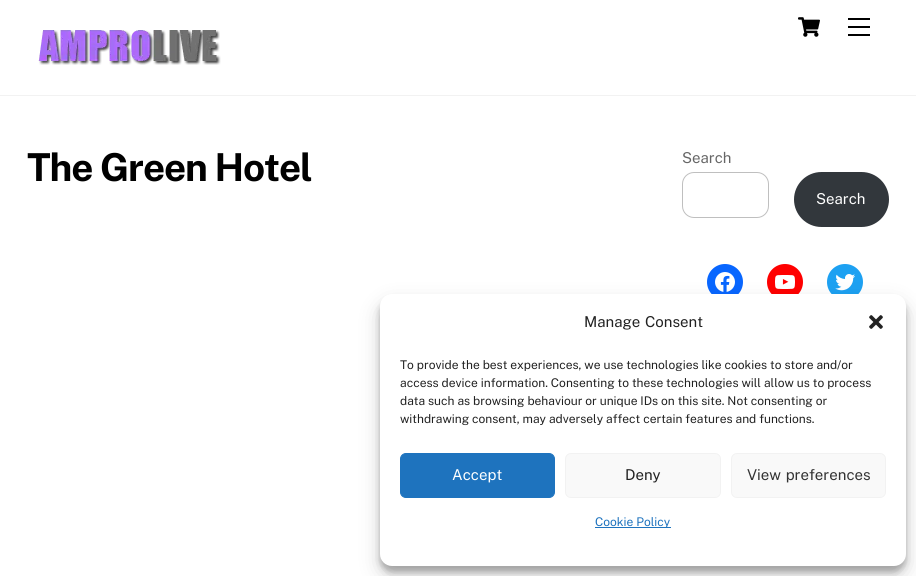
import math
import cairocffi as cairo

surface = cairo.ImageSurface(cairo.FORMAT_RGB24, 916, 576)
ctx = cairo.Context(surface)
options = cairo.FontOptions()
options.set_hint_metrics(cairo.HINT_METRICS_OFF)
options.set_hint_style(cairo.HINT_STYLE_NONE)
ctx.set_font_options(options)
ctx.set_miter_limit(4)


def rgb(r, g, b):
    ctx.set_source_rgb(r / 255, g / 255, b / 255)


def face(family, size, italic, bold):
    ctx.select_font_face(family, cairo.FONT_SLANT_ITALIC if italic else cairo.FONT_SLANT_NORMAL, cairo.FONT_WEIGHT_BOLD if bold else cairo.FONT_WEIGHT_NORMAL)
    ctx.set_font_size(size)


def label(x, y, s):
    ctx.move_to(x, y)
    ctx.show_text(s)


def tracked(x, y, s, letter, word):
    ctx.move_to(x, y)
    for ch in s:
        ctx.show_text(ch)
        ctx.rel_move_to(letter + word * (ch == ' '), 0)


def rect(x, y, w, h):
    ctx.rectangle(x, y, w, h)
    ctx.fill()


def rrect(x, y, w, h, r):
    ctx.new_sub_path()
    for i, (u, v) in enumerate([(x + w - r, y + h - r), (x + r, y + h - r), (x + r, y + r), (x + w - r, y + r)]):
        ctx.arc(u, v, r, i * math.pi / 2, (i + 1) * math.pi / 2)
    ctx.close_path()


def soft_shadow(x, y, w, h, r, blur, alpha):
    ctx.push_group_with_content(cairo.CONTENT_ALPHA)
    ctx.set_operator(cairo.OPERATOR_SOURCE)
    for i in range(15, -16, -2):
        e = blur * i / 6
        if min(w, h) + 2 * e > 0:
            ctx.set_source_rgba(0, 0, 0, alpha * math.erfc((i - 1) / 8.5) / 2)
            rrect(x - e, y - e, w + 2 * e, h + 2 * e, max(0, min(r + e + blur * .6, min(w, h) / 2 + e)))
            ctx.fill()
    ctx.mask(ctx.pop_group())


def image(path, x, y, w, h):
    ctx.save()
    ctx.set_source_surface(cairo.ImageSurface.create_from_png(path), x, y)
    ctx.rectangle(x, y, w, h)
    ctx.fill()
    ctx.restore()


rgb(255, 255, 255)
ctx.paint()
rgb(242, 242, 242)
rect(0, 95, 916, 1)
image('image0.png', 798, 17, 22, 20)
rgb(0, 0, 0)
rect(848, 34, 22, 2)
rect(848, 18, 22, 2)
rect(848, 26, 22, 2)
image('image1.png', 38, 30, 183, 35)
face('Public Sans', 38.5, 0, 1)
tracked(27, 181, 'The Green Hotel', -1.1, 0)
face('Public Sans', 15, 0, 0)
rgb(102, 102, 102)
label(682, 163, 'Search')
rrect(682.5, 172.5, 86, 45, 11.5)
rgb(191, 191, 191)
ctx.set_line_width(1)
ctx.stroke()
rgb(50, 55, 60)
rrect(794, 172, 95, 55, 27.5)
ctx.fill()
rgb(255, 255, 255)
label(816, 204, 'Search')
rgb(8, 102, 255)
ctx.new_path()
ctx.arc(725, 282, 18, 0, 2 * math.pi)
ctx.fill()
image('image2.png', 715, 272, 20, 20)
rgb(255, 0, 0)
ctx.arc(785, 282, 18, 0, 2 * math.pi)
ctx.fill()
image('image3.png', 775, 275, 20, 14)
rgb(29, 161, 242)
ctx.arc(845, 282, 18, 0, 2 * math.pi)
ctx.fill()
image('image4.png', 835, 274, 20, 17)
rgb(0, 0, 0)
soft_shadow(380, 300, 526, 272, 12, 3, 0.23)
soft_shadow(380, 304, 526, 272, 12, 10, 0.19)
rgb(255, 255, 255)
rrect(380, 294, 526, 272, 12)
ctx.fill()
rgb(34, 34, 34)
tracked(584, 327, 'Manage Consent', 0, 1)
image('image5.png', 869, 315, 14, 14)
face('Public Sans', 12, 0, 0)
label(400, 369, 'To provide the best experiences, we use technologies like cookies to store and/or')
label(400, 387, 'access device information. Consenting to these technologies will allow us to process')
label(400, 405, 'data such as browsing behaviour or unique IDs on this site. Not consenting or')
label(400, 423, 'withdrawing consent, may adversely affect certain features and functions.')
rgb(30, 115, 190)
rrect(400.5, 453.5, 154, 44, 5.5)
ctx.fill_preserve()
ctx.stroke()
face('Public Sans', 15, 0, 0)
rgb(255, 255, 255)
label(452, 480, 'Accept')
rgb(249, 249, 249)
rrect(565.5, 453.5, 155, 44, 5.5)
ctx.fill_preserve()
rgb(242, 242, 242)
ctx.stroke()
rgb(34, 34, 34)
label(625, 480, 'Deny')
rgb(249, 249, 249)
rrect(731.5, 453.5, 154, 44, 5.5)
ctx.fill_preserve()
rgb(242, 242, 242)
ctx.stroke()
rgb(51, 51, 51)
tracked(747, 480, 'View preferences', 0, 1)
rgb(30, 115, 190)
rect(595, 527, 76, 1)
face('Public Sans', 12, 0, 0)
label(595, 526, 'Cookie Policy')
surface.write_to_png('render.png')
